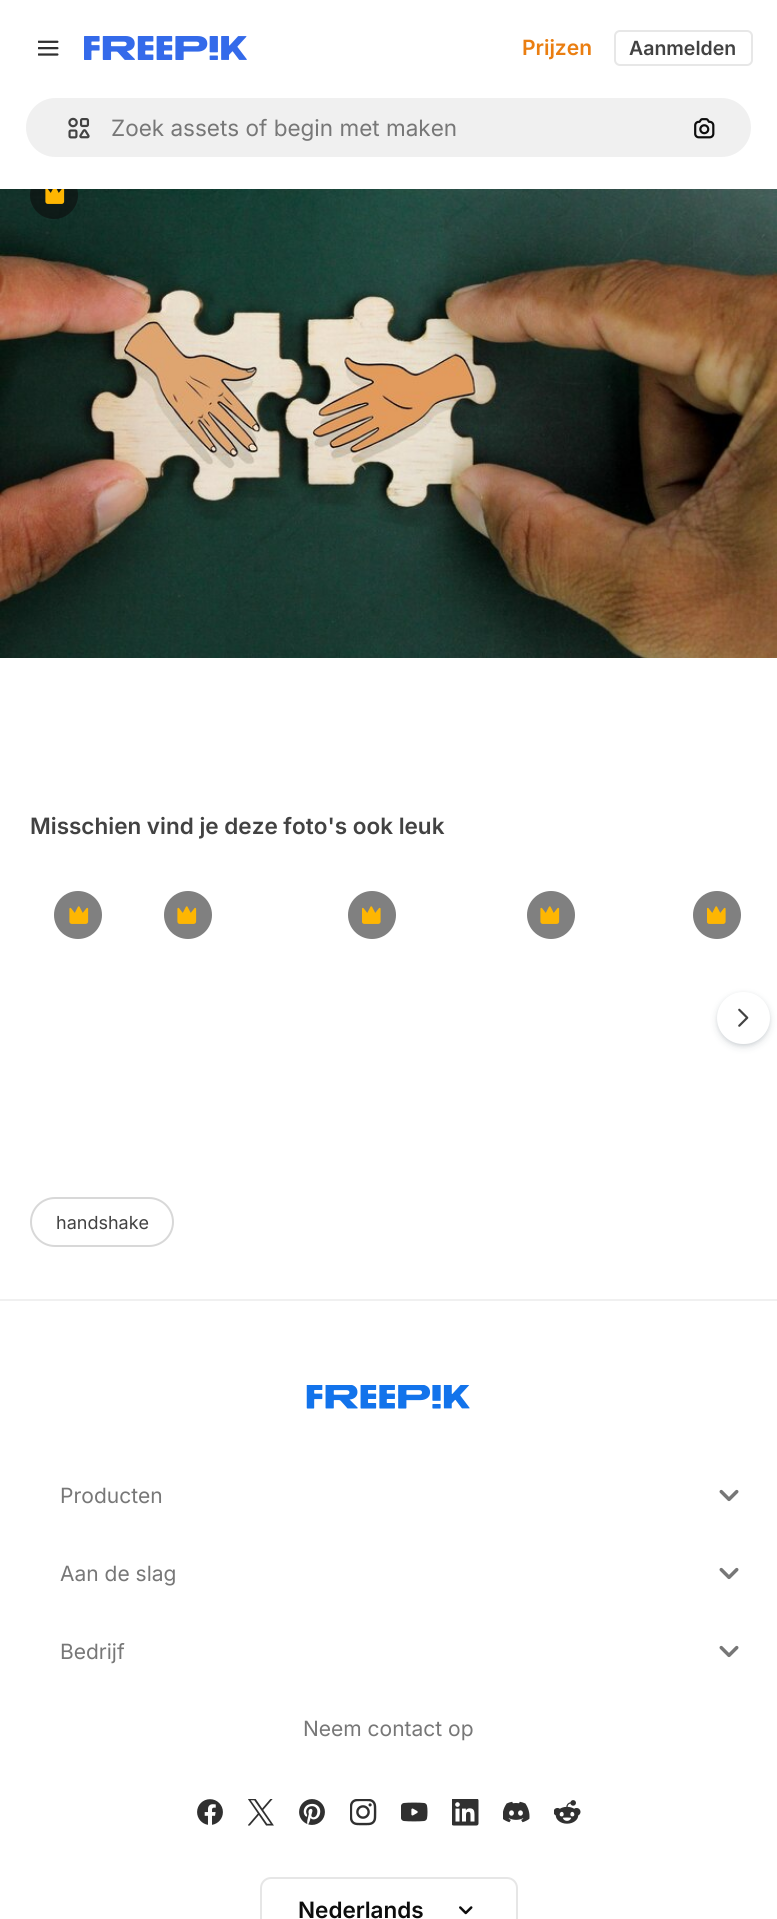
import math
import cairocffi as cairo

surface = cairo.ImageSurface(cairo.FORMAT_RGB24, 777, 1919)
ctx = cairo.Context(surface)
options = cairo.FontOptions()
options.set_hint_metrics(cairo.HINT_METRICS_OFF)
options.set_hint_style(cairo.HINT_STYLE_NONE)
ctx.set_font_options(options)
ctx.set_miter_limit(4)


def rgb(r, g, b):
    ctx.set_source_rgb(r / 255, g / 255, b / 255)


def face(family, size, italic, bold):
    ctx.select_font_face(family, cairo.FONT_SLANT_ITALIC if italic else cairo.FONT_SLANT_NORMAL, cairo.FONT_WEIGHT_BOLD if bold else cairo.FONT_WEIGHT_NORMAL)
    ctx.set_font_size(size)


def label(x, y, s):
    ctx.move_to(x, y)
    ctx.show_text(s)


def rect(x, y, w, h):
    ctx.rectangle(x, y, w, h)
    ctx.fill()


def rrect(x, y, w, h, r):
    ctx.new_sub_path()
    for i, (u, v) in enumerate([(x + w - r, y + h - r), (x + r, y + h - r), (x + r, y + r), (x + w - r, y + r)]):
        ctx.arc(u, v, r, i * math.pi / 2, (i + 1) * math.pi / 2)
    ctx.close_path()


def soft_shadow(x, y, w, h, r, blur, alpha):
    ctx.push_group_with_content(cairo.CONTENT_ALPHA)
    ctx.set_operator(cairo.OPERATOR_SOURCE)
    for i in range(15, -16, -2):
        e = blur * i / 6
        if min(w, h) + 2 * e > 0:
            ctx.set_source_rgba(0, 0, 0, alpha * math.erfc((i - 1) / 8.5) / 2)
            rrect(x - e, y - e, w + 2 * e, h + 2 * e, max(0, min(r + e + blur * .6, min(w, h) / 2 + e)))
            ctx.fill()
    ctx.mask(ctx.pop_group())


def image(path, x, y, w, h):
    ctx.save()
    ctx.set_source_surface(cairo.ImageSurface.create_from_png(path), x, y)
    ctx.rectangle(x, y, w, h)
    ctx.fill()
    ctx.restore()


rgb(255, 255, 255)
ctx.paint()
image('image5.png', 0, 189, 777, 469)
ctx.set_source_rgba(0.051, 0.051, 0.051, 0.6)
ctx.arc(54, 195, 24, 0, 2 * math.pi)
ctx.fill()
rgb(255, 255, 255)
rect(30, 171, 48, 18)
image('image0.png', 38, 40, 21, 16)
image('image1.png', 84, 36, 163, 24)
face('Inter SemiBold', 21, 0, 0)
rgb(234, 126, 17)
label(522, 55, 'Prijzen')
rrect(615, 31, 137, 34, 5)
rgb(231, 231, 231)
ctx.stroke()
face('Inter SemiBold', 19.5, 0, 0)
rgb(66, 66, 66)
label(629, 55, 'Aanmelden')
rgb(240, 240, 240)
rrect(25, 97, 727, 61, 30.5)
ctx.fill_preserve()
rgb(255, 255, 255)
ctx.stroke()
image('image2.png', 68, 117, 22, 22)
face('Inter', 22.5, 0, 0)
rgb(119, 119, 119)
label(111, 136, 'Zoek assets of begin met maken')
image('image3.png', 694, 118, 21, 21)
image('image4.png', 45, 189, 20, 15)
face('Inter SemiBold', 22.5, 0, 0)
rgb(66, 66, 66)
label(30, 834, 'Misschien vind je deze foto\'s ook leuk')
rgb(128, 128, 128)
ctx.new_path()
ctx.arc(78, 915, 24, 0, 2 * math.pi)
ctx.fill()
image('image6.png', 69, 906, 20, 18)
ctx.arc(188, 915, 24, 0, 2 * math.pi)
ctx.fill()
image('image6.png', 177, 906, 20, 18)
ctx.arc(372, 915, 24, 0, 2 * math.pi)
ctx.fill()
image('image7.png', 362, 906, 19, 18)
ctx.arc(551, 915, 24, 0, 2 * math.pi)
ctx.fill()
image('image6.png', 540, 906, 20, 18)
ctx.arc(717, 915, 24, 0, 2 * math.pi)
ctx.fill()
image('image7.png', 707, 906, 19, 18)
rgb(55, 73, 87)
soft_shadow(717, 995, 53, 52, 26, 4, 0.15)
soft_shadow(717, 993, 53, 53, 26.5, 1.5, 0.1)
rgb(255, 255, 255)
rrect(717, 992, 53, 52, 26)
ctx.fill()
image('image8.png', 738, 1008, 11, 19)
rrect(31, 1198, 142, 48, 24)
rgb(216, 216, 216)
ctx.stroke()
face('Inter', 18, 0, 0)
rgb(66, 66, 66)
label(56, 1229, 'handshake')
rgb(240, 240, 240)
rect(0, 1299, 777, 2)
image('image9.png', 306, 1385, 164, 24)
face('Inter', 21, 0, 0)
rgb(119, 119, 119)
label(60, 1503, 'Producten')
image('image10.png', 719, 1489, 20, 13)
label(60, 1581, 'Aan de slag')
image('image10.png', 719, 1567, 20, 13)
label(60, 1659, 'Bedrijf')
image('image10.png', 719, 1645, 20, 13)
label(303, 1736, 'Neem contact op')
image('image11.png', 197, 1799, 26, 26)
image('image12.png', 248, 1799, 26, 27)
image('image13.png', 299, 1799, 26, 26)
image('image14.png', 350, 1799, 27, 27)
image('image15.png', 401, 1802, 27, 20)
image('image16.png', 452, 1799, 27, 27)
image('image17.png', 503, 1801, 27, 22)
image('image18.png', 554, 1800, 27, 24)
rrect(261, 1878, 256, 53, 10)
rgb(230, 230, 230)
ctx.stroke()
face('Inter SemiBold', 22.5, 0, 0)
rgb(13, 13, 13)
label(298, 1918, 'Nederlands')
image('image19.png', 459, 1906, 14, 9)
surface.write_to_png('render.png')
